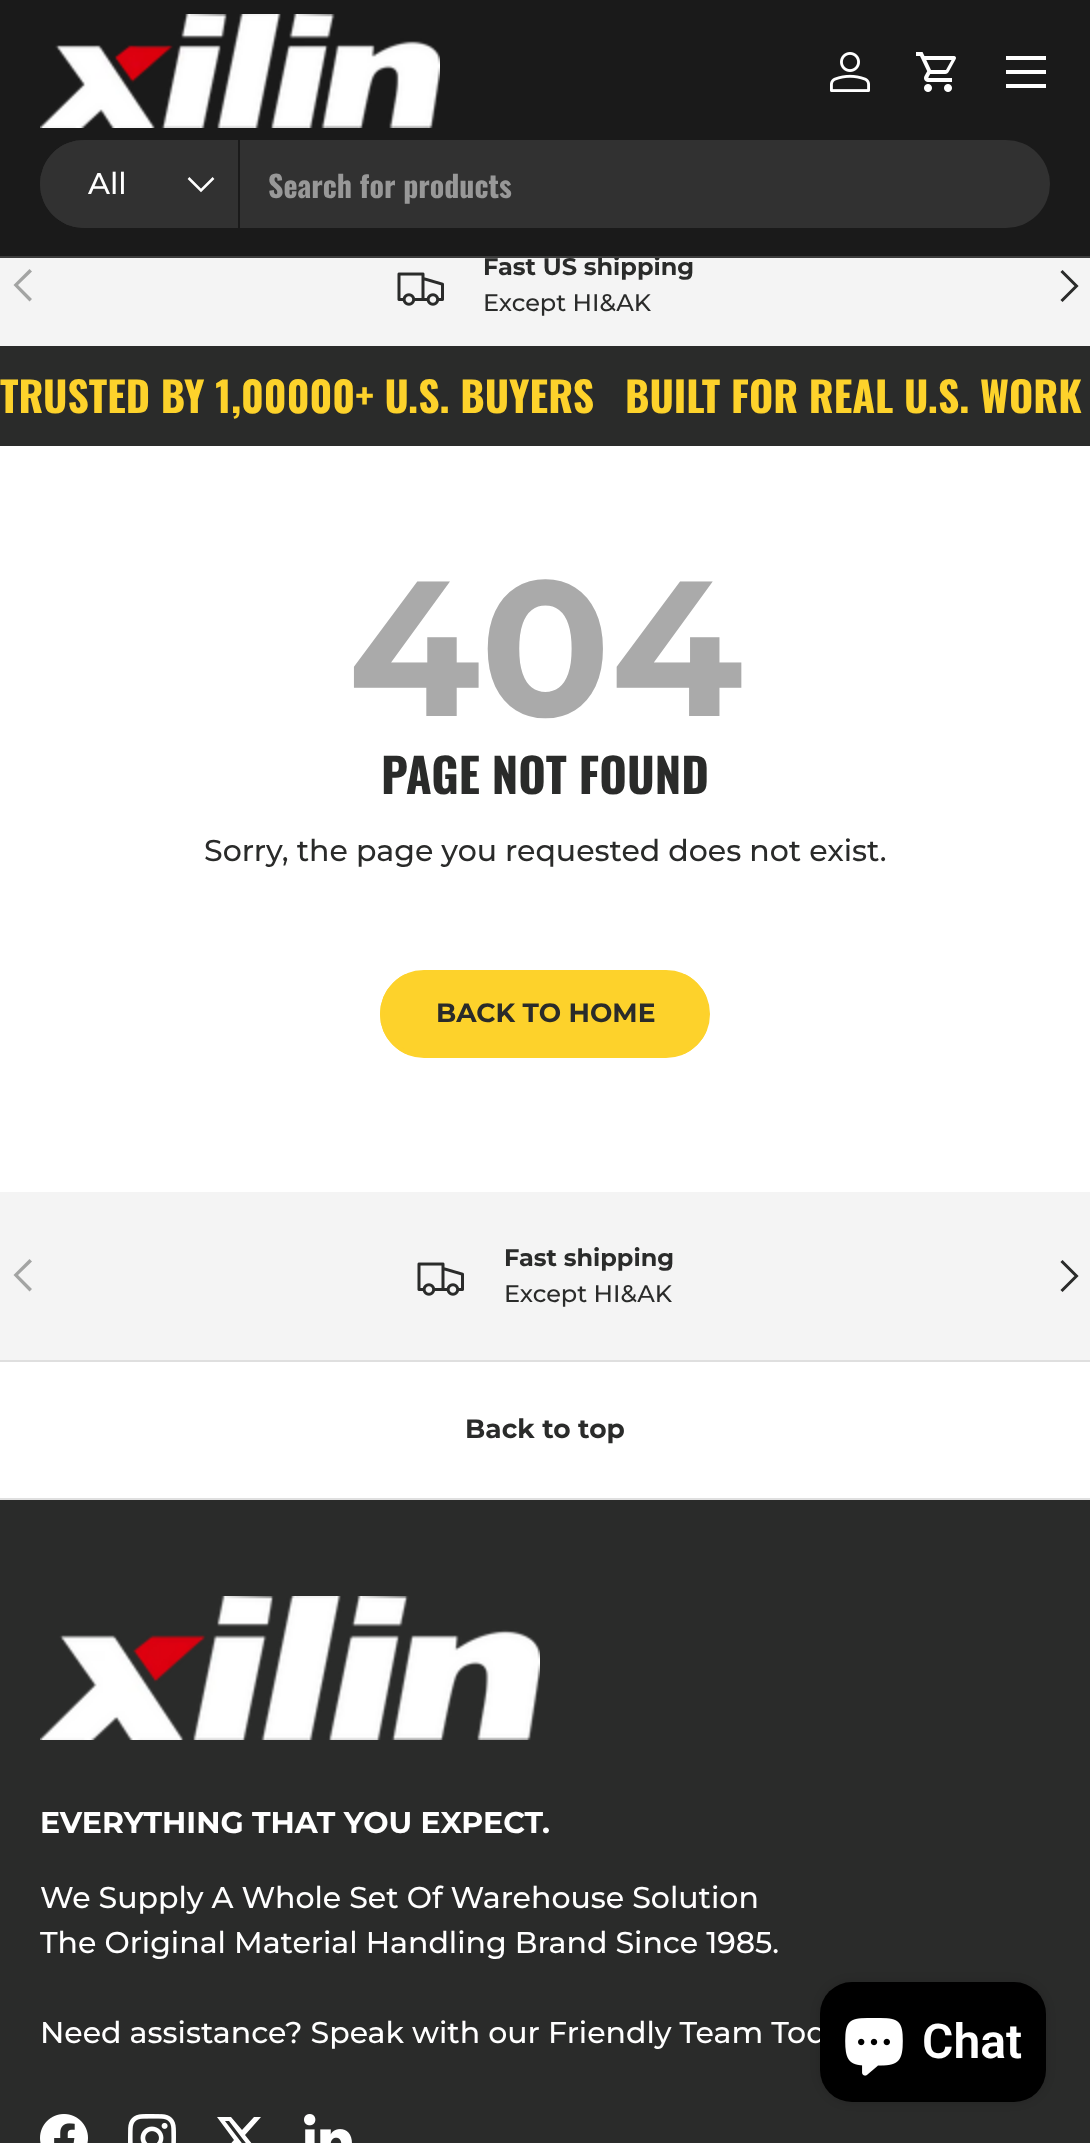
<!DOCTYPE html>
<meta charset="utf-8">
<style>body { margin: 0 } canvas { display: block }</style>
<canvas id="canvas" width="1090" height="2143"></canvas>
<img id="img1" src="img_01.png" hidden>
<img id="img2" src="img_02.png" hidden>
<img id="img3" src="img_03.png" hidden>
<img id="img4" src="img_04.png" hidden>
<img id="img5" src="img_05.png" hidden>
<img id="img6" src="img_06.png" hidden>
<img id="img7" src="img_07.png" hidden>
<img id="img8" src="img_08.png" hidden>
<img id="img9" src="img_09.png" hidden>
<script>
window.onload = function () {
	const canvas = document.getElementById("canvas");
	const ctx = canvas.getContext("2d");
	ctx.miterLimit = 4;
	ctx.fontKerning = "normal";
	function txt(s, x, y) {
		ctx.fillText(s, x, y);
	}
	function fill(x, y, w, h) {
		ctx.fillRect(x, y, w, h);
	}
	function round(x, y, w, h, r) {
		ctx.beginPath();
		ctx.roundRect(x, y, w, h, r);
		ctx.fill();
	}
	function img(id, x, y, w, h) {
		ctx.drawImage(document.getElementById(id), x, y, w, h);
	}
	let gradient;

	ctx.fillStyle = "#FFFFFF";
	fill(0, 0, 1090, 2143);
	ctx.fillStyle = "#1A1A1A";
	fill(0, 0, 1090, 256);
	img("img1", 40, 14, 400, 114);
	img("img2", 830, 52, 40, 40);
	img("img3", 916, 52, 40, 40);
	ctx.fillStyle = "#FFFFFF";
	fill(1006, 56, 40, 4);
	fill(1006, 84, 40, 4);
	fill(1006, 70, 40, 4);
	ctx.fillStyle = "#313131";
	round(40, 140, 1010, 88, 44);
	ctx.beginPath();
	ctx.roundRect(40, 140, 200, 88, [44, 0, 0, 44]);
	ctx.fill();
	ctx.fillStyle = "#1A1A1A";
	fill(238, 140, 2, 88);
	ctx.beginPath();
	ctx.moveTo(213.5, 178);
	ctx.lineTo(201, 190.5);
	ctx.lineTo(188.5, 178);
	ctx.strokeStyle = "#FFFFFF";
	ctx.lineWidth = 2.5;
	ctx.stroke();
	ctx.fillStyle = "#F4F4F4";
	fill(0, 258, 1090, 88);
	img("img4", 397, 272, 47, 34);
	ctx.fillStyle = "#A3A4A3";
	ctx.beginPath();
	ctx.moveTo(13.5, 285);
	ctx.lineTo(29.5, 269);
	ctx.lineTo(32, 271.5);
	ctx.lineTo(18, 285);
	ctx.lineTo(32, 299);
	ctx.lineTo(29.5, 301.5);
	ctx.closePath();
	ctx.fill();
	ctx.beginPath();
	ctx.moveTo(1061.5, 271);
	ctx.lineTo(1076.5, 286);
	ctx.lineTo(1061.5, 301);
	ctx.strokeStyle = "#2A2B2A";
	ctx.lineWidth = 3;
	ctx.stroke();
	ctx.fillStyle = "#2A2B2A";
	fill(0, 346, 1090, 100);
	ctx.save();
	ctx.beginPath();
	ctx.roundRect(380, 970, 330, 88, 44);
	ctx.clip();
	gradient = ctx.createLinearGradient(-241, 898, 687, 1130);
	gradient.addColorStop(0.6, "#DFBD38");
	gradient.addColorStop(0.6, "#FDD22B");
	gradient.addColorStop(1, "#FDD22B");
	ctx.fillStyle = gradient;
	fill(380, 974, 326, 80);
	ctx.restore();
	ctx.beginPath();
	ctx.roundRect(382, 972, 326, 84, 42);
	ctx.strokeStyle = "#FDD22B";
	ctx.lineWidth = 4;
	ctx.stroke();
	ctx.fillStyle = "#F4F4F4";
	fill(0, 1192, 1090, 168);
	img("img4", 417, 1262, 47, 34);
	ctx.fillStyle = "#A3A4A3";
	ctx.beginPath();
	ctx.moveTo(13.5, 1275);
	ctx.lineTo(29.5, 1259);
	ctx.lineTo(32, 1261.5);
	ctx.lineTo(18, 1275);
	ctx.lineTo(32, 1289);
	ctx.lineTo(29.5, 1291.5);
	ctx.closePath();
	ctx.fill();
	ctx.beginPath();
	ctx.moveTo(1061.5, 1261);
	ctx.lineTo(1076.5, 1276);
	ctx.lineTo(1061.5, 1291);
	ctx.strokeStyle = "#2A2B2A";
	ctx.lineWidth = 3;
	ctx.stroke();
	ctx.fillStyle = "#DFDFDF";
	fill(0, 1360, 1090, 2);
	fill(0, 1498, 1090, 2);
	ctx.fillStyle = "#2A2B2A";
	fill(0, 1500, 1090, 643);
	img("img5", 40, 1596, 500, 144);
	img("img6", 40, 2114, 48, 29);
	img("img7", 128, 2114, 48, 29);
	ctx.fillStyle = "#FFFFFF";
	ctx.beginPath();
	ctx.moveTo(254, 2117);
	ctx.lineTo(261, 2117);
	ctx.lineTo(245, 2135);
	ctx.lineTo(264, 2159);
	ctx.lineTo(249, 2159);
	ctx.lineTo(238, 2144);
	ctx.lineTo(225, 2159);
	ctx.lineTo(217, 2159);
	ctx.lineTo(234, 2140);
	ctx.lineTo(217, 2117);
	ctx.lineTo(231, 2117);
	ctx.lineTo(242, 2130);
	ctx.closePath();
	ctx.moveTo(251, 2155);
	ctx.lineTo(255, 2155);
	ctx.lineTo(229, 2121);
	ctx.lineTo(225, 2121);
	ctx.closePath();
	ctx.fill();
	img("img8", 304, 2114, 48, 29);
	ctx.fillStyle = "rgba(0, 0, 0, 0.15)";
	ctx.filter = "blur(5px)";
	ctx.beginPath();
	ctx.roundRect(820, 1982, 226, 120, 32);
	ctx.fill();
	ctx.filter = "none";
	ctx.font = "500 30px Montserrat";
	ctx.fillStyle = "#FFFFFF";
	txt("All", 88, 194);
	ctx.font = "bold 30px Oswald";
	ctx.fillStyle = "#989898";
	txt("Search for products", 268, 198);
	ctx.font = "bold 24px Montserrat";
	ctx.fillStyle = "#2A2B2A";
	txt("Fast US shipping", 483, 275);
	ctx.fillStyle = "#3C3C3C";
	fill(0, 256, 1090, 2);
	ctx.font = "500 24px Montserrat";
	ctx.fillStyle = "#2A2B2A";
	txt("Except HI&AK", 483, 311);
	ctx.font = "bold 41.5px Oswald";
	ctx.fillStyle = "#FDD22B";
	txt("TRUSTED BY 1,00000+ U.S. BUYERS", 0, 413);
	txt("BUILT FOR REAL U.S. WORK", 625, 413);
	ctx.font = "bold 192px Montserrat";
	ctx.fillStyle = "#AAAAAA";
	txt("404", 348, 716);
	ctx.font = "bold 47.25px Oswald";
	ctx.fillStyle = "#2A2B2A";
	txt("PAGE NOT FOUND", 381, 794);
	ctx.font = "500 30px Montserrat";
	txt("Sorry, the page you requested does not exist.", 204, 861);
	ctx.font = "bold 26.5px Montserrat";
	txt("BACK TO HOME", 436, 1022);
	ctx.font = "bold 24px Montserrat";
	txt("Fast shipping", 504, 1266);
	ctx.font = "500 24px Montserrat";
	txt("Except HI&AK", 504, 1302);
	ctx.font = "bold 26.5px Montserrat";
	txt("Back to top", 465, 1438);
	ctx.font = "bold 30px Montserrat";
	ctx.fillStyle = "#FFFFFF";
	txt("EVERYTHING THAT YOU EXPECT.", 40, 1833);
	ctx.font = "500 30px Montserrat";
	txt("We Supply A Whole Set Of Warehouse Solution", 40, 1908);
	txt("The Original Material Handling Brand Since 1985.", 40, 1953);
	txt("Need assistance? Speak with our Friendly Team Tod", 40, 2043);
	ctx.fillStyle = "#000000";
	round(820, 1982, 226, 120, 32);
	img("img9", 845, 2018, 58, 58);
	ctx.font = "600 48px Roboto";
	ctx.fillStyle = "#FFFFFF";
	txt("Chat", 922, 2058);
};
</script>
